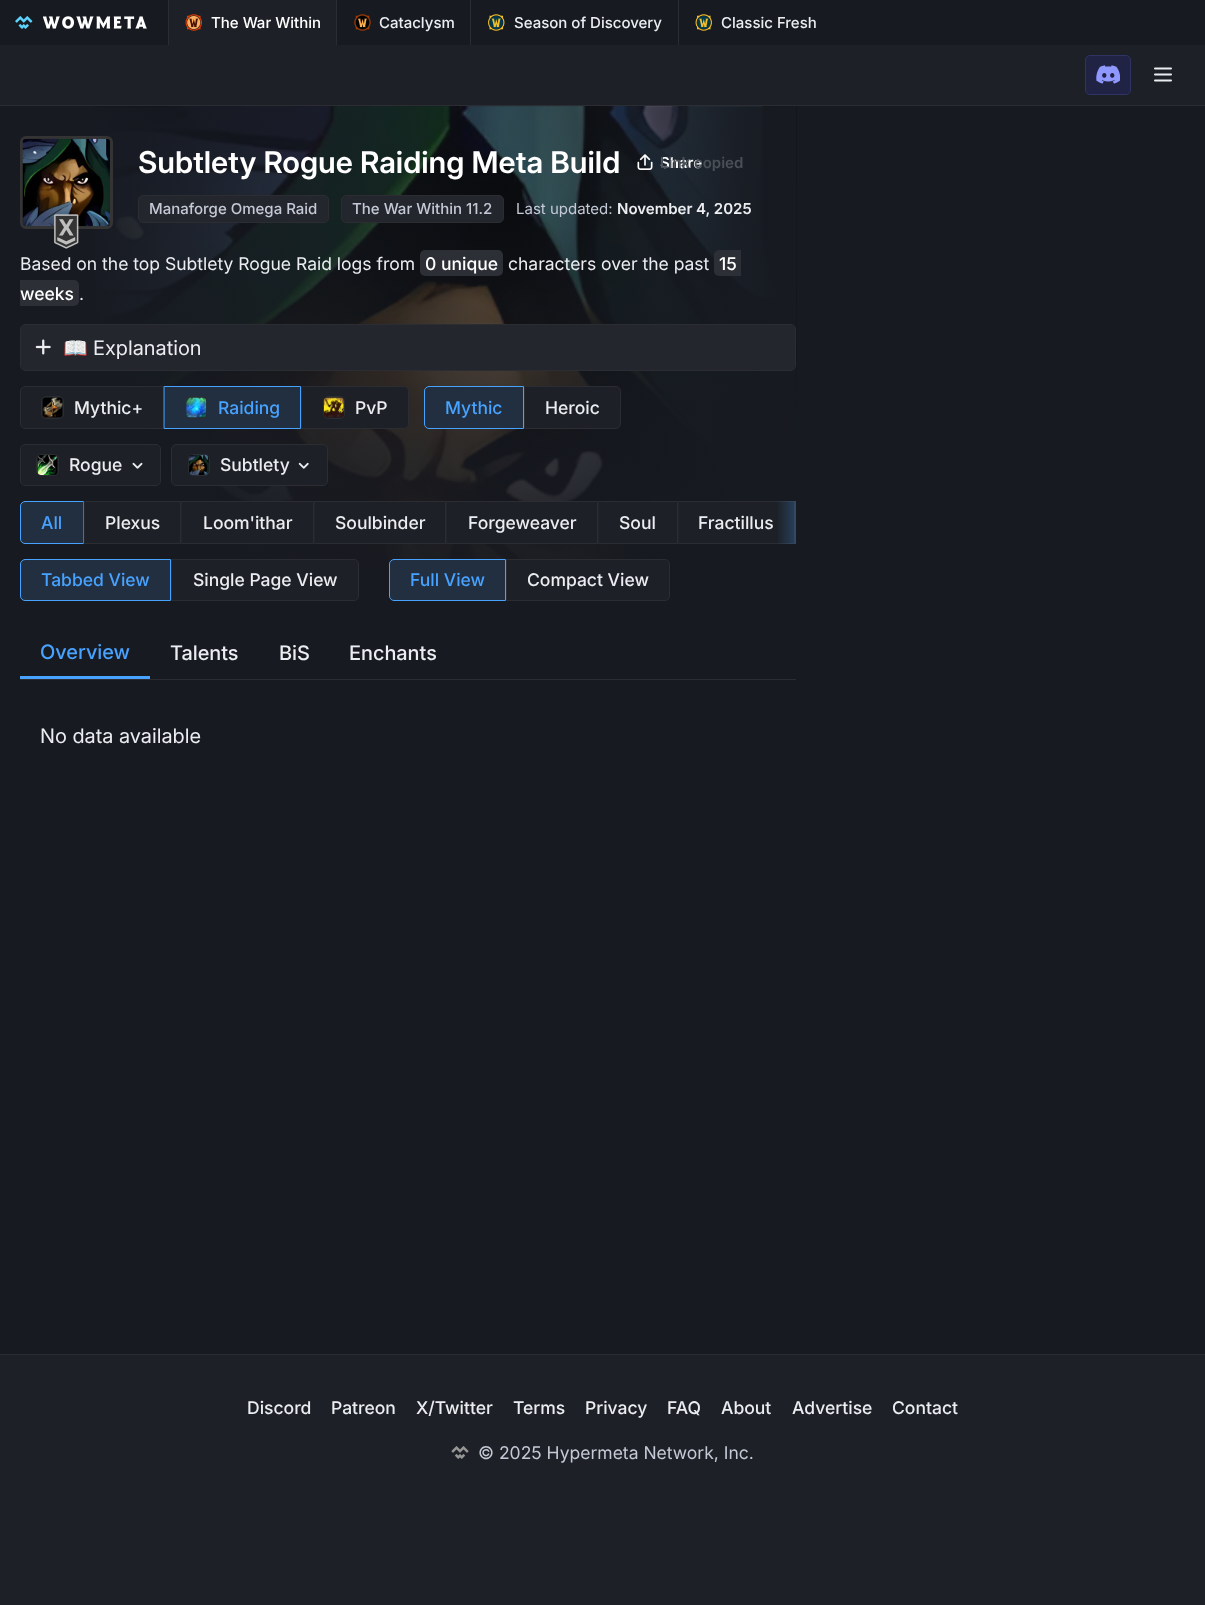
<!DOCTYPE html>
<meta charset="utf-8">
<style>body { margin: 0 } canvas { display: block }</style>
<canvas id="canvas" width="1205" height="1605"></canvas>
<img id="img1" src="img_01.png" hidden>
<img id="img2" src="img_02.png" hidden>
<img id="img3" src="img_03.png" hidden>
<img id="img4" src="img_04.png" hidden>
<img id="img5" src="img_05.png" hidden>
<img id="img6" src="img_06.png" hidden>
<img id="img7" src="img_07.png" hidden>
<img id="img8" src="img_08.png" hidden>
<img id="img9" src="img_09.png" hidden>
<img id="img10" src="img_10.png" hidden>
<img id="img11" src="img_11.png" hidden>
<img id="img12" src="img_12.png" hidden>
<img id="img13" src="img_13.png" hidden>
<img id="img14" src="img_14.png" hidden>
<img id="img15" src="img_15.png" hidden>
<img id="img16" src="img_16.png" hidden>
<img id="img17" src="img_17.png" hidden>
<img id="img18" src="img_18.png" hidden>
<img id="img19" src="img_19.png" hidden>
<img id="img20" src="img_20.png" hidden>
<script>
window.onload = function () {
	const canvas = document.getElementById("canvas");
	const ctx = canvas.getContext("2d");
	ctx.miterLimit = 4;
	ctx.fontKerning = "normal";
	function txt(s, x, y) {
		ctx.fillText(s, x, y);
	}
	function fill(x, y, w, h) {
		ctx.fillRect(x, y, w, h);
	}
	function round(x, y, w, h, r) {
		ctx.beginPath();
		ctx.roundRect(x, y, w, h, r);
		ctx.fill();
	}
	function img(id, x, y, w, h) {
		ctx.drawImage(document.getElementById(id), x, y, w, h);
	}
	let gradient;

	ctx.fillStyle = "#171A21";
	fill(0, 0, 1205, 1605);
	ctx.fillStyle = "#1D2026";
	fill(0, 45, 1205, 60);
	ctx.fillStyle = "#2B2D33";
	fill(0, 105, 1205, 1);
	img("img1", 15, 16, 18, 13);
	img("img2", 43, 16, 104, 13);
	ctx.fillStyle = "#1D2026";
	fill(169, 0, 167, 45);
	ctx.fillStyle = "#2B2D33";
	fill(168, 0, 1, 45);
	img("img3", 185, 14, 17, 17);
	fill(336, 0, 1, 45);
	img("img4", 354, 14, 17, 17);
	fill(470, 0, 1, 45);
	img("img5", 488, 14, 17, 17);
	fill(678, 0, 1, 45);
	img("img6", 695, 14, 17, 17);
	ctx.fillStyle = "#202344";
	ctx.beginPath();
	ctx.roundRect(1085.5, 55.5, 45, 39, 4.5);
	ctx.fill();
	ctx.strokeStyle = "#303465";
	ctx.stroke();
	img("img7", 1096, 65, 24, 19);
	ctx.beginPath();
	ctx.moveTo(1155, 68.5);
	ctx.lineTo(1171, 68.5);
	ctx.moveTo(1155, 74.5);
	ctx.lineTo(1171, 74.5);
	ctx.moveTo(1155, 80.5);
	ctx.lineTo(1171, 80.5);
	ctx.strokeStyle = "#EBEDF1";
	ctx.lineWidth = 2;
	ctx.lineCap = "round";
	ctx.lineJoin = "round";
	ctx.stroke();
	img("img8", 94, 106, 703, 483);
	ctx.beginPath();
	ctx.roundRect(21.5, 137.5, 90, 90, 4.5);
	ctx.strokeStyle = "#343434";
	ctx.lineWidth = 3;
	ctx.lineJoin = "miter";
	ctx.stroke();
	img("img9", 22, 138, 88, 89);
	img("img10", 54, 214, 25, 35);
	img("img11", 637, 154, 16, 16);
	ctx.fillStyle = "#24262D";
	ctx.beginPath();
	ctx.roundRect(138.5, 195.5, 190, 27, 4.5);
	ctx.fill();
	ctx.strokeStyle = "#2B2D33";
	ctx.lineWidth = 1;
	ctx.stroke();
	ctx.beginPath();
	ctx.roundRect(341.5, 195.5, 162, 27, 4.5);
	ctx.fill();
	ctx.stroke();
	ctx.fillStyle = "#2C2F35";
	ctx.beginPath();
	ctx.roundRect(420, 250, 16, 26, [5, 0, 0, 5]);
	ctx.fill();
	ctx.beginPath();
	ctx.roundRect(436, 250, 67, 26, [0, 5, 5, 0]);
	ctx.fill();
	ctx.beginPath();
	ctx.roundRect(714, 250, 27, 26, [5, 0, 0, 5]);
	ctx.fill();
	ctx.beginPath();
	ctx.roundRect(20, 280, 59, 26, [0, 5, 5, 0]);
	ctx.fill();
	ctx.beginPath();
	ctx.roundRect(20.5, 324.5, 775, 46, 4.5);
	ctx.stroke();
	ctx.fillStyle = "#24262D";
	round(21, 325, 774, 45, 4);
	img("img12", 35, 339, 16, 16);
	ctx.fillStyle = "#1D2026";
	ctx.beginPath();
	ctx.roundRect(20.5, 386.5, 143, 42, [4.5, 0, 0, 4.5]);
	ctx.fill();
	ctx.stroke();
	ctx.beginPath();
	ctx.roundRect(41.5, 396.5, 22, 22, 4.5);
	ctx.stroke();
	img("img13", 42, 397, 21, 21);
	ctx.fillStyle = "#222F40";
	ctx.beginPath();
	ctx.rect(164.5, 386.5, 136, 42);
	ctx.fill();
	ctx.strokeStyle = "#47A3FF";
	ctx.stroke();
	ctx.beginPath();
	ctx.roundRect(185.5, 396.5, 22, 22, 4.5);
	ctx.strokeStyle = "#2B2D33";
	ctx.stroke();
	img("img14", 186, 397, 21, 21);
	ctx.fillStyle = "#1D2026";
	ctx.beginPath();
	ctx.roundRect(301.5, 386.5, 107, 42, [0, 4.5, 4.5, 0]);
	ctx.fill();
	ctx.stroke();
	ctx.beginPath();
	ctx.roundRect(323.5, 396.5, 21, 22, 4.5);
	ctx.stroke();
	img("img15", 323, 397, 21, 21);
	ctx.fillStyle = "#222F40";
	ctx.beginPath();
	ctx.roundRect(424.5, 386.5, 99, 42, [4.5, 0, 0, 4.5]);
	ctx.fill();
	ctx.strokeStyle = "#47A3FF";
	ctx.stroke();
	ctx.fillStyle = "#1D2026";
	ctx.beginPath();
	ctx.roundRect(524.5, 386.5, 96, 42, [0, 4.5, 4.5, 0]);
	ctx.fill();
	ctx.strokeStyle = "#2B2D33";
	ctx.stroke();
	ctx.beginPath();
	ctx.roundRect(20.5, 444.5, 140, 41, 4.5);
	ctx.fill();
	ctx.stroke();
	ctx.beginPath();
	ctx.roundRect(36.5, 454.5, 22, 21, 4.5);
	ctx.stroke();
	img("img16", 37, 455, 21, 20);
	img("img17", 132, 462, 11, 7);
	ctx.beginPath();
	ctx.roundRect(171.5, 444.5, 156, 41, 4.5);
	ctx.fill();
	ctx.stroke();
	ctx.beginPath();
	ctx.roundRect(188.5, 454.5, 21, 21, 4.5);
	ctx.stroke();
	img("img18", 189, 455, 20, 20);
	img("img19", 298, 462, 11, 7);
	ctx.fillStyle = "#222F40";
	ctx.beginPath();
	ctx.roundRect(20.5, 501.5, 63, 42, [4.5, 0, 0, 4.5]);
	ctx.fill();
	ctx.strokeStyle = "#47A3FF";
	ctx.stroke();
	ctx.fillStyle = "#1D2026";
	ctx.beginPath();
	ctx.rect(84.5, 501.5, 96, 42);
	ctx.fill();
	ctx.strokeStyle = "#2B2D33";
	ctx.stroke();
	ctx.beginPath();
	ctx.rect(181.5, 501.5, 132, 42);
	ctx.fill();
	ctx.stroke();
	ctx.beginPath();
	ctx.rect(314.5, 501.5, 131, 42);
	ctx.fill();
	ctx.stroke();
	ctx.beginPath();
	ctx.rect(446.5, 501.5, 151, 42);
	ctx.fill();
	ctx.stroke();
	ctx.beginPath();
	ctx.rect(598.5, 501.5, 79, 42);
	ctx.fill();
	ctx.stroke();
	ctx.beginPath();
	ctx.rect(678.5, 501.5, 116, 42);
	ctx.fill();
	ctx.stroke();
	ctx.save();
	ctx.beginPath();
	ctx.rect(20, 501, 776, 43);
	ctx.clip();
	ctx.strokeRect(795.5, 501.5, 140, 42);
	ctx.restore();
	gradient = ctx.createLinearGradient(796, 523, 776, 523);
	gradient.addColorStop(0, "rgba(71, 163, 255, 0.25)");
	gradient.addColorStop(1, "rgba(71, 163, 255, 0)");
	ctx.fillStyle = gradient;
	fill(778, 501, 18, 43);
	ctx.fillStyle = "#222F40";
	ctx.beginPath();
	ctx.roundRect(20.5, 559.5, 150, 41, [4.5, 0, 0, 4.5]);
	ctx.fill();
	ctx.strokeStyle = "#47A3FF";
	ctx.stroke();
	ctx.fillStyle = "#1D2026";
	ctx.beginPath();
	ctx.roundRect(171.5, 559.5, 187, 41, [0, 4.5, 4.5, 0]);
	ctx.fill();
	ctx.strokeStyle = "#2B2D33";
	ctx.stroke();
	ctx.fillStyle = "#222F40";
	ctx.beginPath();
	ctx.roundRect(389.5, 559.5, 116, 41, [4.5, 0, 0, 4.5]);
	ctx.fill();
	ctx.strokeStyle = "#47A3FF";
	ctx.stroke();
	ctx.fillStyle = "#1D2026";
	ctx.beginPath();
	ctx.roundRect(506.5, 559.5, 163, 41, [0, 4.5, 4.5, 0]);
	ctx.fill();
	ctx.strokeStyle = "#2B2D33";
	ctx.stroke();
	ctx.fillStyle = "#2B2D33";
	fill(20, 679, 776, 1);
	ctx.fillStyle = "#47A3FF";
	fill(20, 676, 130, 3);
	ctx.fillStyle = "#1D2026";
	fill(0, 1355, 1205, 250);
	ctx.fillStyle = "#2B2D33";
	fill(0, 1354, 1205, 1);
	img("img20", 451, 1446, 18, 13);
	ctx.font = "500 15px Inter";
	ctx.fillStyle = "#FFFFFF";
	txt("The War Within", 211, 28);
	ctx.fillStyle = "#EBEDF1";
	txt("Cataclysm", 379, 28);
	txt("Season of Discovery", 514, 28);
	txt("Classic Fresh", 721, 28);
	ctx.font = "600 30px Inter";
	ctx.fillStyle = "#FFFFFF";
	txt("Subtlety Rogue Raiding Meta Build", 138, 173);
	ctx.font = "600 15px 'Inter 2'";
	txt("Share", 660, 168);
	ctx.fillStyle = "#4A5057";
	txt("Link copied", 660, 168);
	ctx.font = "500 15px Inter";
	ctx.fillStyle = "#C4C9D6";
	txt("Manaforge Omega Raid", 149, 214);
	txt("The War Within 11.2", 352, 214);
	ctx.font = "15px 'Inter 2'";
	txt("Last updated:", 516, 214);
	ctx.font = "600 15px 'Inter 2'";
	ctx.fillStyle = "#EBEDF1";
	txt("November 4, 2025", 617, 214);
	ctx.font = "17.5px 'Inter 2'";
	txt("Based on the top Subtlety Rogue Raid logs from", 20, 270);
	ctx.font = "500 17.5px Inter";
	ctx.fillStyle = "#FFFFFF";
	txt("0 unique", 425, 270);
	ctx.font = "17.5px 'Inter 2'";
	ctx.fillStyle = "#EBEDF1";
	txt("characters over the past", 508, 270);
	ctx.font = "500 17.5px Inter";
	ctx.fillStyle = "#FFFFFF";
	txt("15", 719, 270);
	txt("weeks", 20, 300);
	ctx.font = "17.5px 'Inter 2'";
	ctx.fillStyle = "#EBEDF1";
	txt(".", 79, 300);
	ctx.font = "20px Noto Color Emoji";
	txt("📖", 63, 355);
	ctx.font = "20px Inter";
	txt("Explanation", 93, 355);
	ctx.font = "500 17.5px Inter";
	txt("Mythic+", 74, 414);
	ctx.fillStyle = "#47A3FF";
	txt("Raiding", 218, 414);
	ctx.fillStyle = "#EBEDF1";
	txt("PvP", 355, 414);
	ctx.fillStyle = "#47A3FF";
	txt("Mythic", 445, 414);
	ctx.fillStyle = "#EBEDF1";
	txt("Heroic", 545, 414);
	txt("Rogue", 69, 471);
	txt("Subtlety", 220, 471);
	ctx.fillStyle = "#47A3FF";
	txt("All", 41, 529);
	ctx.fillStyle = "#EBEDF1";
	txt("Plexus", 105, 529);
	txt("Loom'ithar", 203, 529);
	txt("Soulbinder", 335, 529);
	txt("Forgeweaver", 468, 529);
	txt("Soul", 619, 529);
	txt("Fractillus", 698, 529);
	ctx.fillStyle = "#47A3FF";
	txt("Tabbed View", 41, 586);
	ctx.fillStyle = "#EBEDF1";
	txt("Single Page View", 193, 586);
	ctx.fillStyle = "#47A3FF";
	txt("Full View", 410, 586);
	ctx.fillStyle = "#EBEDF1";
	txt("Compact View", 527, 586);
	ctx.font = "500 20px 'Inter 2'";
	ctx.fillStyle = "#47A3FF";
	txt("Overview", 40, 659);
	ctx.fillStyle = "#EBEDF1";
	txt("Talents", 170, 660);
	txt("BiS", 279, 660);
	txt("Enchants", 349, 660);
	ctx.font = "20px Inter";
	txt("No data available", 40, 743);
	ctx.font = "500 17.5px Inter";
	txt("Discord", 247, 1414);
	txt("Patreon", 331, 1414);
	txt("X/Twitter", 416, 1414);
	txt("Terms", 513, 1414);
	txt("Privacy", 585, 1414);
	txt("FAQ", 667, 1414);
	txt("About", 721, 1414);
	txt("Advertise", 792, 1414);
	txt("Contact", 892, 1414);
	ctx.font = "17.5px 'Inter 2'";
	ctx.fillStyle = "#C4C9D6";
	txt("© 2025 Hypermeta Network, Inc.", 478, 1459);
};
</script>
